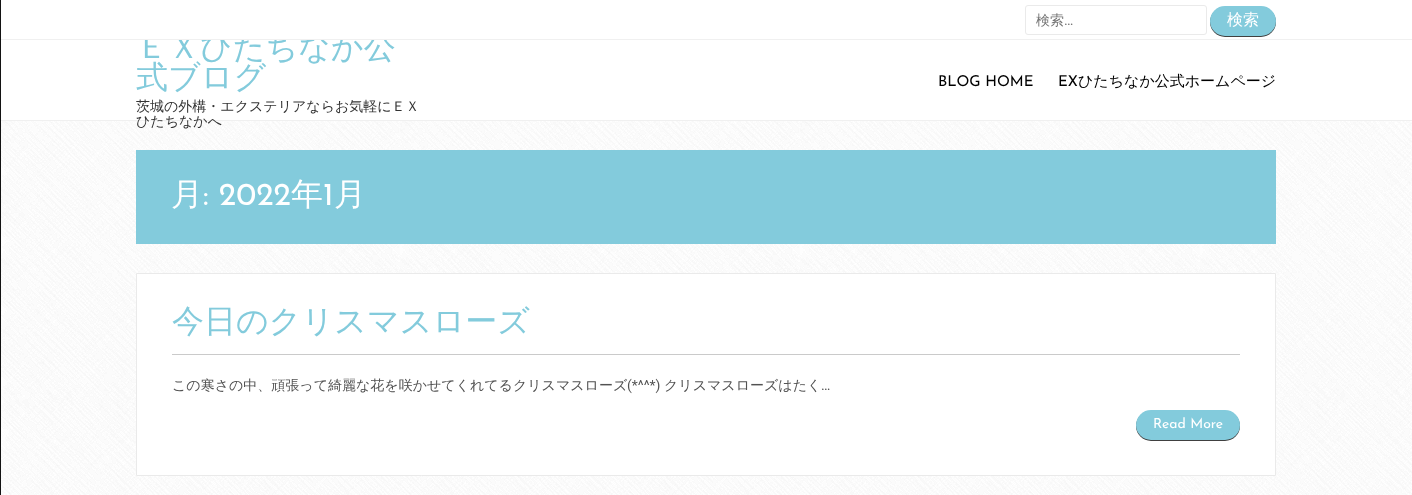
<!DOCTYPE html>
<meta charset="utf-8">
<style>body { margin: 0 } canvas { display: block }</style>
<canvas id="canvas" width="1412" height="495"></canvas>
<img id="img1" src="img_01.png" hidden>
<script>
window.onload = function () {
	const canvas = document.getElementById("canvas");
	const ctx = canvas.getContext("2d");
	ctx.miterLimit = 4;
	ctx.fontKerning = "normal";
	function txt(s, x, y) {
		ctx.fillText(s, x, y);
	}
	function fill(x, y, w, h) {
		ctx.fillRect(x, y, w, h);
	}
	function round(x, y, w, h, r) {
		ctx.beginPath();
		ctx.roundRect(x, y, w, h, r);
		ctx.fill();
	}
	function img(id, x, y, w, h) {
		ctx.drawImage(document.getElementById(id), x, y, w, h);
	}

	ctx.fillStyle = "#FFFFFF";
	fill(0, 0, 1412, 495);
	img("img1", 1, 121, 1411, 374);
	ctx.fillStyle = "#F0F0F0";
	fill(0, 120, 1412, 1);
	ctx.beginPath();
	ctx.roundRect(1025.5, 5.5, 181, 29, 2.5);
	ctx.strokeStyle = "#EAEAEA";
	ctx.stroke();
	ctx.fillStyle = "#83CBDC";
	fill(136, 150, 1140, 94);
	ctx.fillStyle = "#FFFFFF";
	ctx.beginPath();
	ctx.rect(136.5, 273.5, 1139, 202);
	ctx.fill();
	ctx.stroke();
	ctx.fillStyle = "#CACACA";
	fill(172, 354, 1068, 1);
	ctx.fillStyle = "rgba(0, 0, 0, 0.75)";
	ctx.filter = "blur(0.5px)";
	ctx.beginPath();
	ctx.roundRect(1136, 411, 104, 30, 15);
	ctx.fill();
	ctx.filter = "none";
	ctx.fillStyle = "#83CBDC";
	round(1136, 410, 104, 30, 15);
	ctx.font = "500 14px WenQuanYi Zen Hei";
	ctx.fillStyle = "#757575";
	txt("検索", 1036, 25);
	ctx.font = "14px Roboto";
	txt("…", 1064, 25);
	ctx.font = "500 32px WenQuanYi Zen Hei";
	ctx.fillStyle = "#83CBDC";
	txt("ＥＸひたちなか公", 136, 58);
	ctx.fillStyle = "#F0F0F0";
	fill(0, 39, 1412, 1);
	ctx.fillStyle = "#131313";
	fill(0, 0, 1, 495);
	ctx.fillStyle = "rgba(0, 0, 0, 0.75)";
	ctx.filter = "blur(0.5px)";
	ctx.beginPath();
	ctx.roundRect(1210, 7, 66, 30, 15);
	ctx.fill();
	ctx.filter = "none";
	ctx.fillStyle = "#83CBDC";
	round(1210, 6, 66, 30, 15);
	ctx.font = "500 16px WenQuanYi Zen Hei";
	ctx.fillStyle = "#FFFFFF";
	txt("検索", 1227, 25);
	fill(144, 32, 242, 7);
	ctx.font = "500 32px WenQuanYi Zen Hei";
	ctx.fillStyle = "#83CBDC";
	txt("式ブログ", 136, 88);
	ctx.font = "500 14px WenQuanYi Zen Hei";
	ctx.fillStyle = "#333333";
	txt("茨城の外構・エクステリアならお気軽にＥＸ", 136, 111);
	txt("ひたちなかへ", 136, 126);
	ctx.font = "15px Josefin Sans";
	ctx.fillStyle = "#000000";
	txt("BLOG HOME", 938, 86);
	txt("EX", 1058, 86);
	ctx.font = "500 15px WenQuanYi Zen Hei";
	txt("ひたちなか公式ホームページ", 1078, 86);
	ctx.font = "500 32px WenQuanYi Zen Hei";
	ctx.fillStyle = "#FFFFFF";
	txt("月", 171, 205);
	ctx.font = "32px Josefin Sans";
	txt(": 2022", 203, 205);
	ctx.font = "500 32px WenQuanYi Zen Hei";
	txt("年", 291, 205);
	ctx.font = "32px Josefin Sans";
	txt("1", 323, 205);
	ctx.font = "500 32px WenQuanYi Zen Hei";
	txt("月", 334, 205);
	ctx.fillStyle = "#83CBDC";
	txt("今日のクリスマスローズ", 172, 332);
	ctx.font = "500 14px WenQuanYi Zen Hei";
	ctx.fillStyle = "#525252";
	txt("この寒さの中、頑張って綺麗な花を咲かせてくれてるクリスマスローズ", 172, 390);
	ctx.font = "14px Roboto";
	txt("(*^^*)", 627, 390);
	ctx.font = "500 14px WenQuanYi Zen Hei";
	txt("クリスマスローズはたく", 664, 390);
	ctx.font = "14px Roboto";
	txt("…", 821, 390);
	ctx.font = "14px Josefin Sans";
	ctx.fillStyle = "#FFFFFF";
	txt("Read More", 1153, 428);
};
</script>
